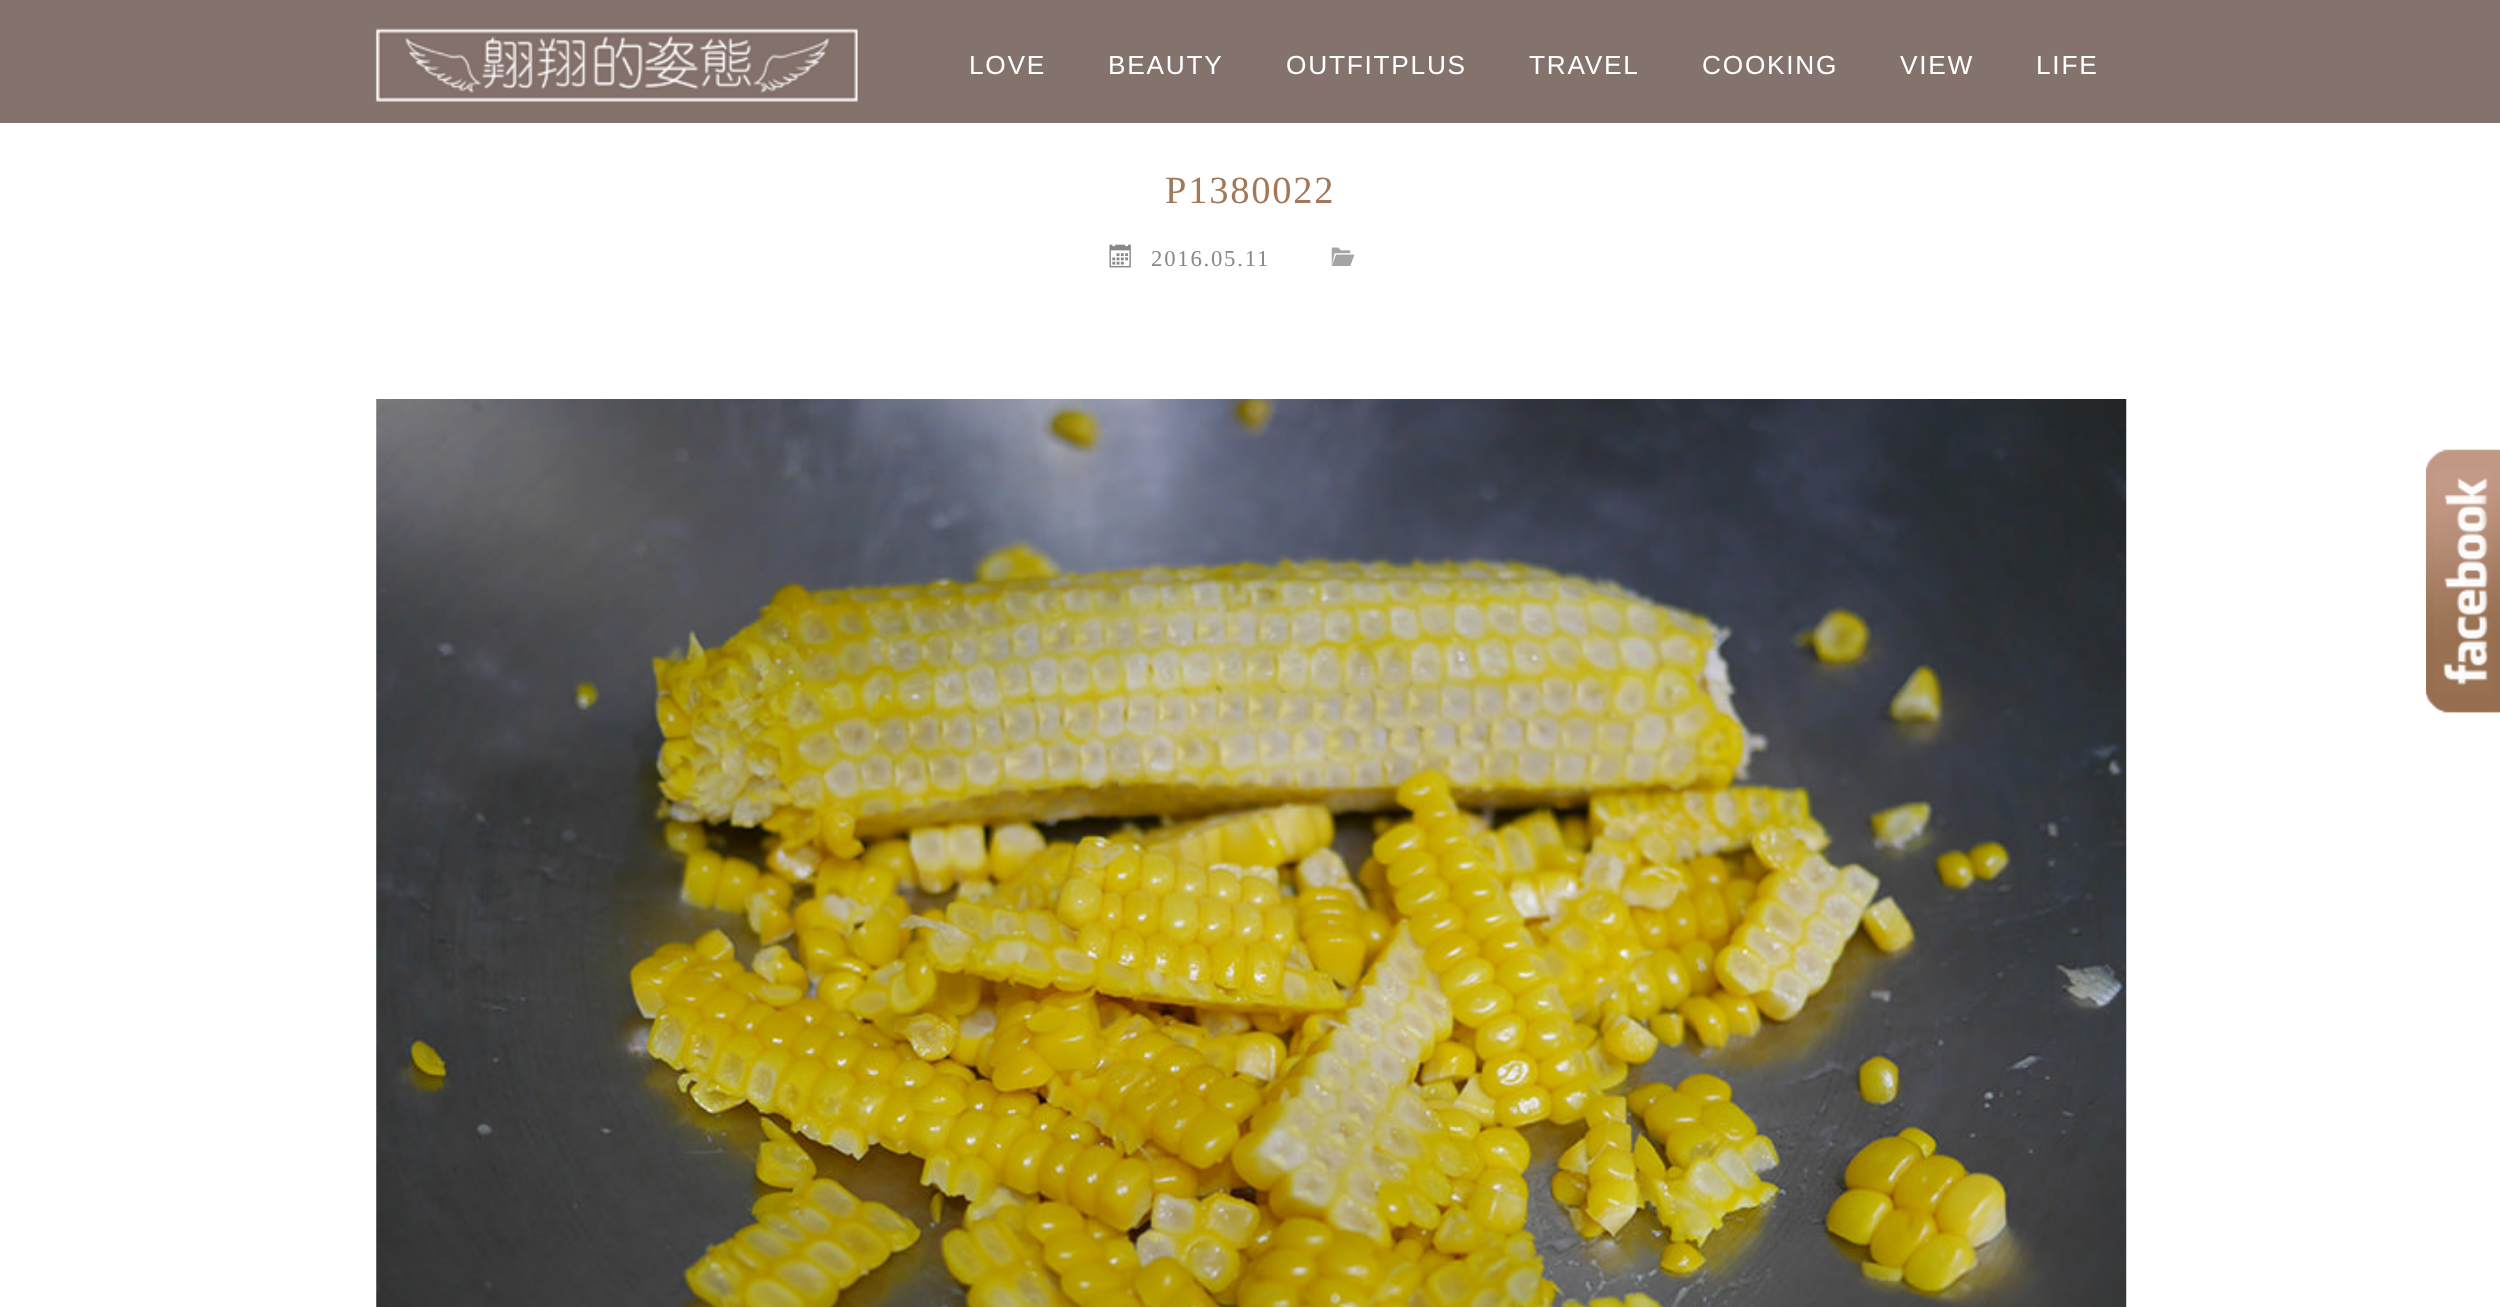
<!DOCTYPE html>
<meta charset="utf-8">
<style>body { margin: 0 } canvas { display: block }</style>
<canvas id="canvas" width="2500" height="1307"></canvas>
<img id="img1" src="img_01.png" hidden>
<img id="img2" src="img_02.png" hidden>
<img id="img3" src="img_03.png" hidden>
<img id="img4" src="img_04.png" hidden>
<img id="img5" src="img_05.png" hidden>
<script>
window.onload = function () {
	const canvas = document.getElementById("canvas");
	const ctx = canvas.getContext("2d");
	ctx.miterLimit = 4;
	ctx.fontKerning = "normal";
	function txt(s, x, y) {
		ctx.fillText(s, x, y);
	}
	function fill(x, y, w, h) {
		ctx.fillRect(x, y, w, h);
	}
	function img(id, x, y, w, h) {
		ctx.drawImage(document.getElementById(id), x, y, w, h);
	}

	ctx.fillStyle = "#FFFFFF";
	fill(0, 0, 2500, 1307);
	ctx.fillStyle = "#84726C";
	fill(0, 0, 2500, 123);
	img("img1", 375, 26, 483, 76);
	img("img2", 1109, 244, 22, 24);
	img("img3", 1331, 247, 24, 19);
	img("img4", 376, 399, 1751, 908);
	img("img5", 2426, 449, 74, 264);
	ctx.letterSpacing = "1.75px";
	ctx.font = "26.25px Liberation Sans";
	ctx.fillStyle = "#FFFFFF";
	txt("LOVE", 969, 74);
	txt("BEAUTY", 1108, 74);
	txt("OUTFITPLUS", 1286, 74);
	txt("TRAVEL", 1529, 74);
	txt("COOKING", 1702, 74);
	txt("VIEW", 1900, 74);
	txt("LIFE", 2036, 74);
	ctx.font = "38.5px Liberation Serif";
	ctx.fillStyle = "#A1785A";
	txt("P1380022", 1165, 203);
	ctx.font = "22.75px Liberation Serif";
	ctx.fillStyle = "#888888";
	txt("2016.05.11", 1151, 266);
};
</script>
